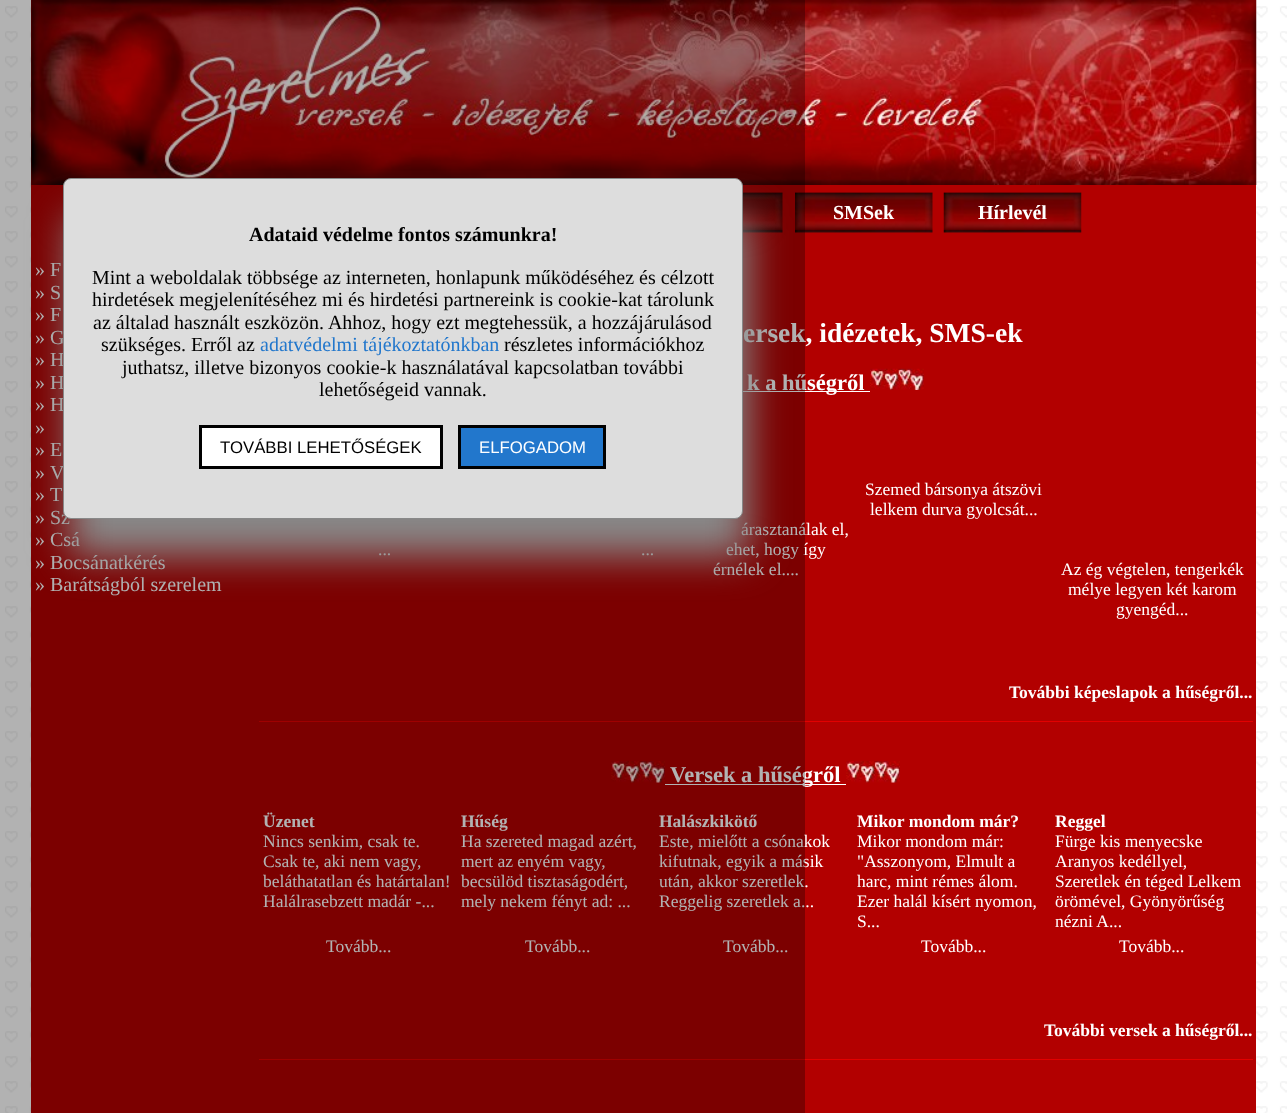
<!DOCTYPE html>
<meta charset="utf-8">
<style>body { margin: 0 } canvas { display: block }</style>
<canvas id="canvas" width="1287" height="1113"></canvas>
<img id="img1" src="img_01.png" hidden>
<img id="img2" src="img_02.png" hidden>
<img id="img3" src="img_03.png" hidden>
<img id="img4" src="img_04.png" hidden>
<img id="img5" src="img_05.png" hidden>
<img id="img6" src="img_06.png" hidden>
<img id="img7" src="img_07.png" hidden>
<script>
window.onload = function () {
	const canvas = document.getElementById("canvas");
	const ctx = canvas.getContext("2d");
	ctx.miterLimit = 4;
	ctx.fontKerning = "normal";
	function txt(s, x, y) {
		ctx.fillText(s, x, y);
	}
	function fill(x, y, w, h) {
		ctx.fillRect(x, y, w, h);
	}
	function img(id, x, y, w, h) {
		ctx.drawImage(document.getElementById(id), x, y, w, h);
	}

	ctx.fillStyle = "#FFFFFF";
	fill(0, 0, 1287, 1113);
	img("img1", 5, 6, 1282, 1107);
	ctx.fillStyle = "#B20000";
	fill(31, 0, 1225, 1113);
	img("img2", 31, 0, 1226, 185);
	img("img3", 743, 192, 40, 41);
	img("img4", 795, 192, 138, 41);
	img("img5", 943, 192, 139, 41);
	ctx.fillStyle = "#FFFFFF";
	fill(743, 391, 127, 1);
	img("img6", 870, 368, 54, 22);
	ctx.fillStyle = "#E20000";
	fill(259, 721, 994, 1);
	img("img7", 611, 761, 54, 22);
	ctx.fillStyle = "#FFFFFF";
	fill(665, 784, 181, 1);
	img("img7", 846, 761, 54, 22);
	ctx.fillStyle = "#E20000";
	fill(259, 1059, 994, 1);
	ctx.font = "bold 20px Liberation Serif";
	ctx.fillStyle = "#FFFFFF";
	txt("SMSek", 833, 219);
	txt("Hírlevél", 978, 219);
	ctx.font = "20px Liberation Serif";
	txt("» F", 35, 276);
	txt("» S", 35, 299);
	txt("» F", 35, 321);
	txt("» G", 35, 344);
	txt("» H", 35, 366);
	txt("» H", 35, 389);
	txt("» H", 35, 411);
	txt("»", 35, 434);
	txt("» E", 35, 456);
	txt("»", 35, 479);
	txt("V", 50, 479);
	txt("»", 35, 501);
	txt("T", 50, 501);
	txt("» Sz", 35, 524);
	txt("» Csá", 35, 546);
	txt("» Bocsánatkérés", 35, 569);
	txt("» Barátságból szerelem", 35, 591);
	ctx.font = "bold 27.5px Liberation Serif";
	txt("ersek, idézetek, SMS-ek", 743, 342);
	ctx.font = "bold 22.5px Liberation Serif";
	txt("k a hűségről", 747, 390);
	ctx.font = "17.5px Liberation Serif";
	txt("Szemed bársonya átszövi", 865, 495);
	txt("lelkem durva gyolcsát...", 870, 515);
	txt("...", 378, 555);
	txt("...", 641, 555);
	txt("árasztanálak el,", 741, 535);
	txt("ehet, hogy így", 726, 555);
	txt("érnélek el....", 713, 575);
	txt("Az ég végtelen, tengerkék", 1061, 575);
	txt("mélye legyen két karom", 1068, 595);
	txt("gyengéd...", 1116, 615);
	ctx.font = "bold 17.5px Liberation Serif";
	txt("További képeslapok a hűségről...", 1009, 698);
	ctx.font = "bold 22.5px Liberation Serif";
	txt("Versek a hűségről", 670, 782);
	ctx.font = "bold 17.5px Liberation Serif";
	txt("Üzenet", 263, 827);
	ctx.font = "17.5px Liberation Serif";
	txt("Nincs senkim, csak te.", 263, 847);
	txt("Csak te, aki nem vagy,", 263, 867);
	txt("beláthatatlan és határtalan!", 263, 887);
	txt("Halálrasebzett madár -...", 263, 907);
	ctx.font = "bold 17.5px Liberation Serif";
	txt("Hűség", 461, 827);
	ctx.font = "17.5px Liberation Serif";
	txt("Ha szereted magad azért,", 461, 847);
	txt("mert az enyém vagy,", 461, 867);
	txt("becsülöd tisztaságodért,", 461, 887);
	txt("mely nekem fényt ad: ...", 461, 907);
	ctx.font = "bold 17.5px Liberation Serif";
	txt("Halászkikötő", 659, 827);
	ctx.font = "17.5px Liberation Serif";
	txt("Este, mielőtt a csónakok", 659, 847);
	txt("kifutnak, egyik a másik", 659, 867);
	txt("után, akkor szeretlek.", 659, 887);
	txt("Reggelig szeretlek a...", 659, 907);
	ctx.font = "bold 17.5px Liberation Serif";
	txt("Mikor mondom már?", 857, 827);
	ctx.font = "17.5px Liberation Serif";
	txt("Mikor mondom már:", 857, 847);
	txt("\"Asszonyom, Elmult a", 857, 867);
	txt("harc, mint rémes álom.", 857, 887);
	txt("Ezer halál kísért nyomon,", 857, 907);
	txt("S...", 857, 927);
	ctx.font = "bold 17.5px Liberation Serif";
	txt("Reggel", 1055, 827);
	ctx.font = "17.5px Liberation Serif";
	txt("Fürge kis menyecske", 1055, 847);
	txt("Aranyos kedéllyel,", 1055, 867);
	txt("Szeretlek én téged Lelkem", 1055, 887);
	txt("örömével, Gyönyörűség", 1055, 907);
	txt("nézni A...", 1055, 927);
	txt("Tovább...", 326, 952);
	txt("Tovább...", 525, 952);
	txt("Tovább...", 723, 952);
	txt("Tovább...", 921, 952);
	txt("Tovább...", 1119, 952);
	ctx.font = "bold 17.5px Liberation Serif";
	txt("További versek a hűségről...", 1044, 1036);
	ctx.fillStyle = "rgba(0, 0, 0, 0.3)";
	fill(0, 0, 805, 1113);
	ctx.fillStyle = "#888888";
	ctx.filter = "blur(19px)";
	ctx.beginPath();
	ctx.roundRect(69, 215, 680, 341, 8);
	ctx.fill();
	ctx.filter = "none";
	ctx.fillStyle = "#DDDDDD";
	ctx.beginPath();
	ctx.roundRect(63.5, 178.5, 679, 340, 7.5);
	ctx.fill();
	ctx.strokeStyle = "#888888";
	ctx.stroke();
	ctx.font = "bold 20px Liberation Serif";
	ctx.fillStyle = "#000000";
	txt("Adataid védelme fontos számunkra!", 249, 241);
	ctx.font = "20px Liberation Serif";
	txt("Mint a weboldalak többsége az interneten, honlapunk működéséhez és célzott", 92, 284);
	txt("hirdetések megjelenítéséhez mi és hirdetési partnereink is cookie-kat tárolunk", 92, 306);
	txt("az általad használt eszközön. Ahhoz, hogy ezt megtehessük, a hozzájárulásod", 93, 329);
	txt("szükséges. Erről az", 101, 351);
	ctx.fillStyle = "#2277CC";
	txt("adatvédelmi tájékoztatónkban", 260, 351);
	ctx.fillStyle = "#000000";
	txt("részletes információkhoz", 504, 351);
	txt("juthatsz, illetve bizonyos cookie-k használatával kapcsolatban további", 122, 374);
	txt("lehetőségeid vannak.", 319, 396);
	ctx.fillStyle = "#FFFFFF";
	ctx.beginPath();
	ctx.rect(200.5, 426.5, 241, 41);
	ctx.fill();
	ctx.strokeStyle = "#000000";
	ctx.lineWidth = 3;
	ctx.stroke();
	ctx.font = "16.75px Liberation Sans";
	ctx.fillStyle = "#000000";
	txt("TOVÁBBI LEHETŐSÉGEK", 220, 453);
	ctx.fillStyle = "#2277CC";
	ctx.beginPath();
	ctx.rect(459.5, 426.5, 145, 41);
	ctx.fill();
	ctx.stroke();
	ctx.fillStyle = "#FFFFFF";
	txt("ELFOGADOM", 479, 453);
};
</script>
